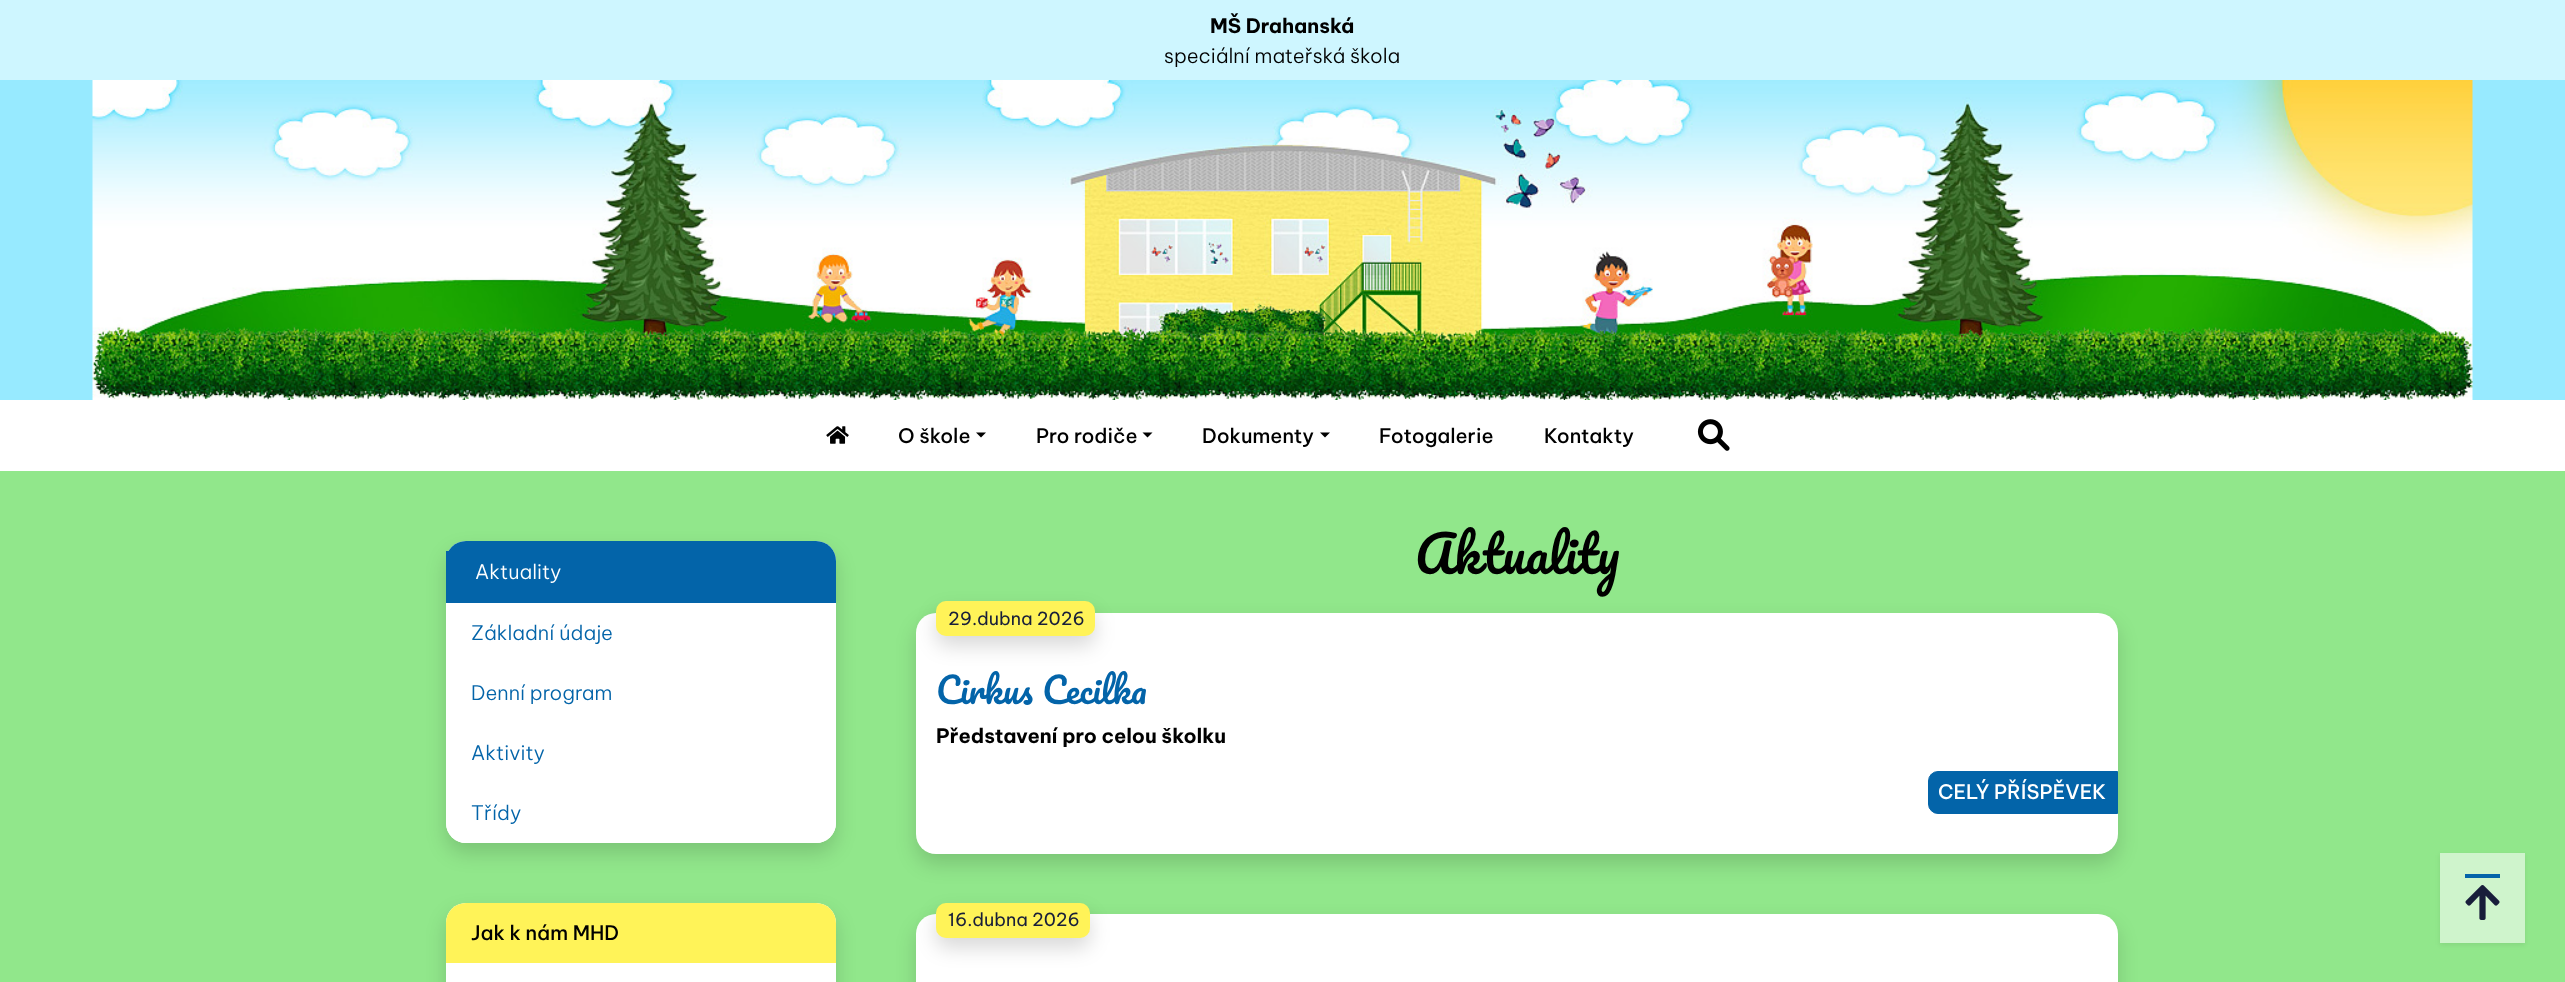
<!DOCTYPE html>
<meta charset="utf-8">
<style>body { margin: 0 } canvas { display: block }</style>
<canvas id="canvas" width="2565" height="982"></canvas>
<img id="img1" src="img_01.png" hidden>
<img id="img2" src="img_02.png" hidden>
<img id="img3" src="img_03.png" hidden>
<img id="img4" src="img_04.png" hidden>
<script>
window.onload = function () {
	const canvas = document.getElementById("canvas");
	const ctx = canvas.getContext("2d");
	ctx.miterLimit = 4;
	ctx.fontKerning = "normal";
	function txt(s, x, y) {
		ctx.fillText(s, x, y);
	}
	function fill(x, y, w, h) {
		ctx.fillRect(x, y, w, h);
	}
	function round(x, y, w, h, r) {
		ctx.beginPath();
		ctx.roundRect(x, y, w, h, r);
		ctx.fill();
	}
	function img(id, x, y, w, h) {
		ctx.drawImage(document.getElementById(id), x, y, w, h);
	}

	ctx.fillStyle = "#91E78B";
	fill(0, 0, 2565, 982);
	ctx.fillStyle = "#CEF6FF";
	fill(0, 0, 2565, 80);
	ctx.fillStyle = "#97EAFF";
	fill(0, 80, 2565, 320);
	img("img1", 92, 80, 2381, 320);
	ctx.fillStyle = "#FFFFFF";
	fill(0, 400, 2565, 71);
	img("img2", 826, 426, 23, 18);
	ctx.fillStyle = "#000000";
	ctx.beginPath();
	ctx.moveTo(976, 432.5);
	ctx.lineTo(986, 432.5);
	ctx.lineTo(981, 437.5);
	ctx.closePath();
	ctx.fill();
	ctx.beginPath();
	ctx.moveTo(1142.5, 432.5);
	ctx.lineTo(1152.5, 432.5);
	ctx.lineTo(1147.5, 437.5);
	ctx.closePath();
	ctx.fill();
	ctx.beginPath();
	ctx.moveTo(1320, 432.5);
	ctx.lineTo(1330, 432.5);
	ctx.lineTo(1325, 437.5);
	ctx.closePath();
	ctx.fill();
	img("img3", 1697, 419, 33, 32);
	ctx.fillStyle = "rgba(0, 0, 0, 0.15)";
	ctx.filter = "blur(10px)";
	ctx.beginPath();
	ctx.roundRect(446, 551, 390, 302, 20);
	ctx.fill();
	ctx.filter = "none";
	ctx.fillStyle = "#FFFFFF";
	round(446, 541, 390, 302, 20);
	ctx.fillStyle = "#0364A9";
	ctx.beginPath();
	ctx.roundRect(446, 541, 390, 62, [20, 20, 0, 0]);
	ctx.fill();
	fill(446, 551, 3, 10);
	ctx.fillStyle = "#FFFFFF";
	ctx.beginPath();
	ctx.roundRect(446, 783, 390, 60, [0, 0, 20, 20]);
	ctx.fill();
	ctx.fillStyle = "rgba(0, 0, 0, 0.15)";
	ctx.filter = "blur(10px)";
	ctx.beginPath();
	ctx.roundRect(446, 913, 390, 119, 20);
	ctx.fill();
	ctx.filter = "none";
	ctx.fillStyle = "#FFFFFF";
	round(446, 903, 390, 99, 20);
	ctx.fillStyle = "#FFF358";
	ctx.beginPath();
	ctx.roundRect(446, 903, 390, 60, [20, 20, 0, 0]);
	ctx.fill();
	ctx.fillStyle = "rgba(0, 0, 0, 0.15)";
	ctx.filter = "blur(10px)";
	ctx.beginPath();
	ctx.roundRect(916, 623, 1202, 241, 20);
	ctx.fill();
	ctx.filter = "none";
	ctx.fillStyle = "#FFFFFF";
	round(916, 613, 1202, 241, 20);
	ctx.fillStyle = "rgba(0, 0, 0, 0.15)";
	ctx.filter = "blur(10px)";
	ctx.beginPath();
	ctx.roundRect(936, 611, 159, 35, 10);
	ctx.fill();
	ctx.filter = "none";
	ctx.fillStyle = "#FFF358";
	round(936, 601, 159, 35, 10);
	ctx.beginPath();
	ctx.roundRect(936.5, 601.5, 158, 34, 9.5);
	ctx.strokeStyle = "rgba(255, 243, 88, 0.18)";
	ctx.stroke();
	ctx.fillStyle = "#0364A9";
	ctx.beginPath();
	ctx.roundRect(1928.5, 771.5, 189, 42, [9.5, 0, 0, 9.5]);
	ctx.fill();
	ctx.strokeStyle = "#0364A9";
	ctx.stroke();
	ctx.fillStyle = "rgba(0, 0, 0, 0.15)";
	ctx.filter = "blur(10px)";
	ctx.beginPath();
	ctx.roundRect(916, 924, 1202, 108, 20);
	ctx.fill();
	ctx.filter = "none";
	ctx.fillStyle = "#FFFFFF";
	round(916, 914, 1202, 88, 20);
	ctx.fillStyle = "rgba(0, 0, 0, 0.15)";
	ctx.filter = "blur(10px)";
	ctx.beginPath();
	ctx.roundRect(936, 913, 154, 35, 10);
	ctx.fill();
	ctx.filter = "none";
	ctx.fillStyle = "#FFF358";
	round(936, 903, 154, 35, 10);
	ctx.beginPath();
	ctx.roundRect(936.5, 903.5, 153, 34, 9.5);
	ctx.strokeStyle = "rgba(255, 243, 88, 0.18)";
	ctx.stroke();
	ctx.save();
	ctx.beginPath();
	ctx.moveTo(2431, 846);
	ctx.lineTo(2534, 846);
	ctx.lineTo(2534, 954);
	ctx.lineTo(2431, 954);
	ctx.closePath();
	ctx.moveTo(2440, 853);
	ctx.lineTo(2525, 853);
	ctx.lineTo(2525, 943);
	ctx.lineTo(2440, 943);
	ctx.closePath();
	ctx.clip("evenodd");
	ctx.fillStyle = "rgba(0, 0, 0, 0.07)";
	ctx.filter = "blur(2.5px)";
	ctx.beginPath();
	ctx.rect(2440, 855, 85, 90);
	ctx.fill();
	ctx.filter = "none";
	ctx.restore();
	ctx.fillStyle = "rgba(255, 255, 255, 0.56)";
	fill(2440, 853, 85, 90);
	ctx.fillStyle = "#0364A9";
	fill(2465, 874, 35, 4);
	img("img4", 2465, 885, 35, 35);
	ctx.font = "bold 20px Be Vietnam Pro";
	ctx.fillStyle = "#000000";
	txt("MŠ Drahanská", 1210, 33);
	ctx.font = "300 20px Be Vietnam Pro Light";
	txt("speciální mateřská škola", 1164, 63);
	ctx.font = "500 20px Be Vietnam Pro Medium";
	txt("O škole", 898, 443);
	txt("Pro rodiče", 1036, 443);
	txt("Dokumenty", 1202, 443);
	txt("Fotogalerie", 1379, 443);
	txt("Kontakty", 1544, 443);
	ctx.font = "300 20px Be Vietnam Pro Light";
	ctx.fillStyle = "#FFFFFF";
	txt("Aktuality", 475, 579);
	ctx.fillStyle = "#0364A9";
	txt("Základní údaje", 471, 640);
	txt("Denní program", 471, 700);
	txt("Aktivity", 471, 760);
	txt("Třídy", 471, 820);
	ctx.font = "500 20px Be Vietnam Pro Medium";
	ctx.fillStyle = "#000000";
	txt("Jak k nám MHD", 471, 940);
	ctx.font = "50px Pacifico";
	txt("Aktuality", 1415, 574);
	ctx.font = "18px Be Vietnam Pro";
	ctx.fillStyle = "#181E3A";
	txt("29.dubna 2026", 948, 625);
	ctx.font = "35px Pacifico";
	ctx.fillStyle = "#0364A9";
	txt("Cirkus Cecilka", 936, 704);
	ctx.font = "bold 20px Be Vietnam Pro";
	ctx.fillStyle = "#000000";
	txt("Představení pro celou školku", 936, 743);
	ctx.font = "500 20px Be Vietnam Pro Medium";
	ctx.fillStyle = "#FFFFFF";
	txt("CELÝ PŘÍSPĚVEK", 1938, 799);
	ctx.font = "18px Be Vietnam Pro";
	ctx.fillStyle = "#181E3A";
	txt("16.dubna 2026", 948, 926);
};
</script>
